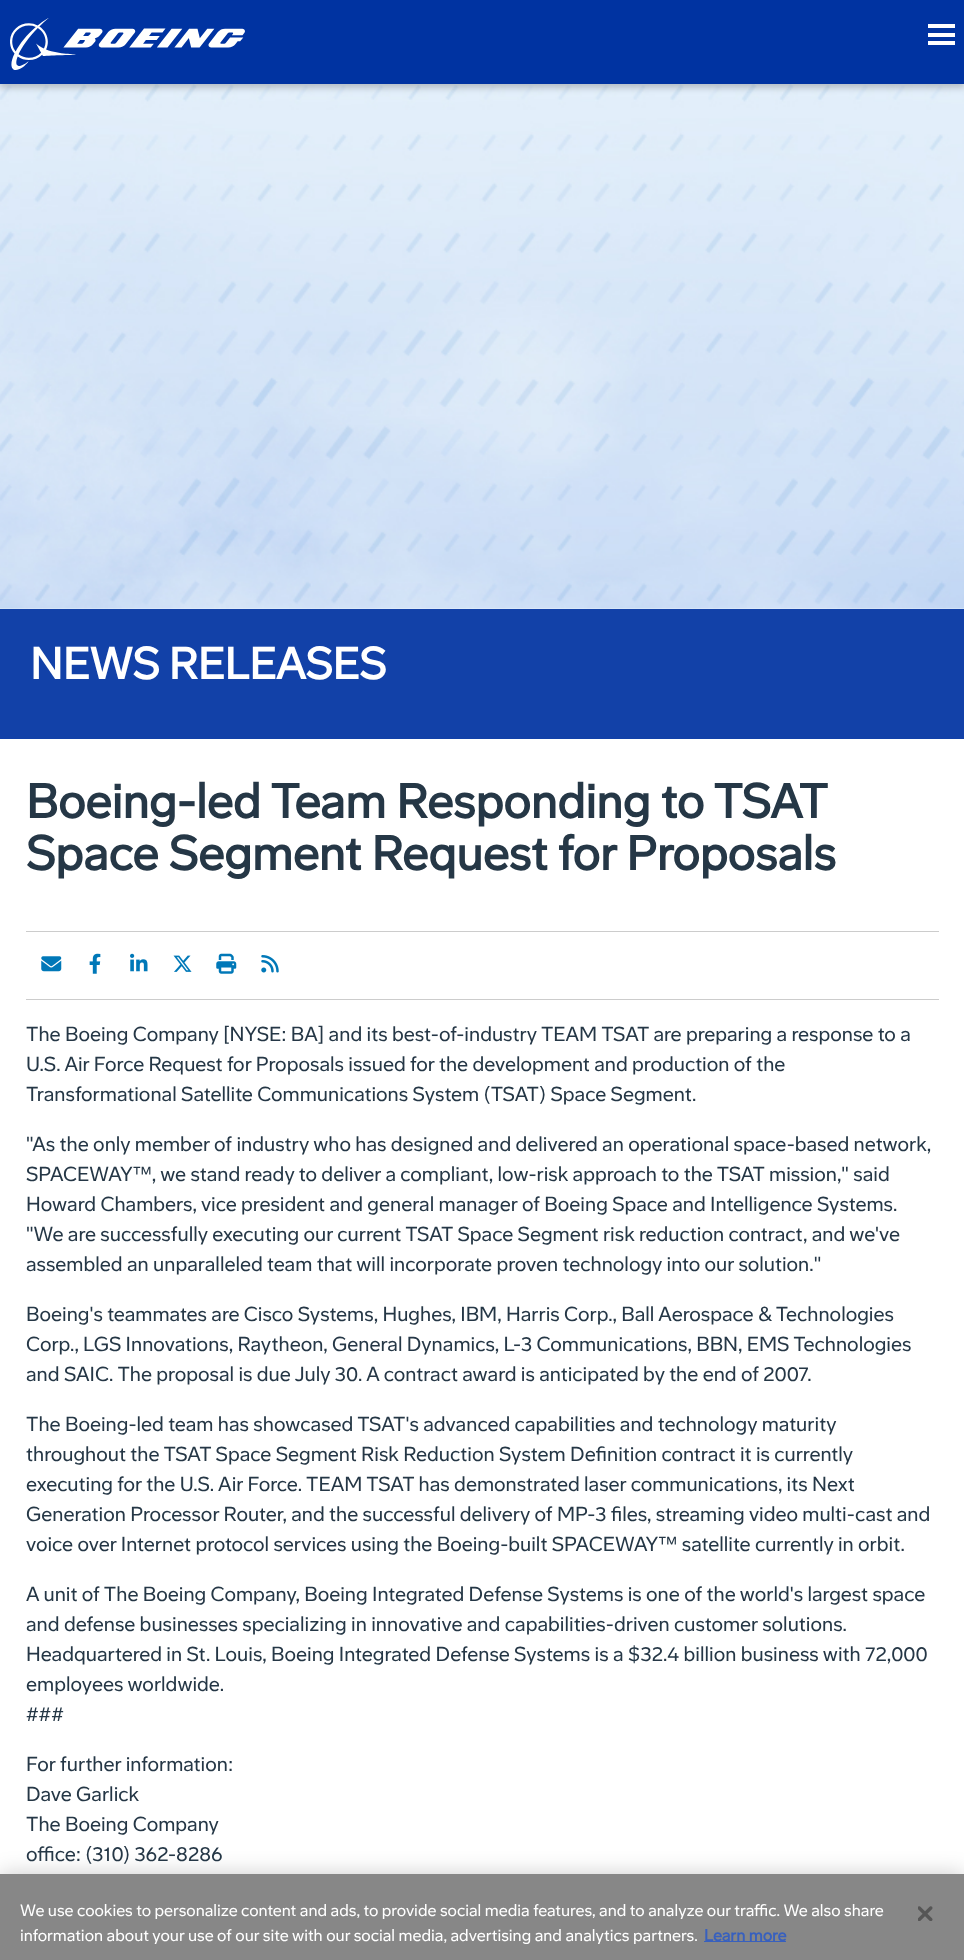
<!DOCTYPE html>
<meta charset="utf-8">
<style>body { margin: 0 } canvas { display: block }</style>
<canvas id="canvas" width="964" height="1960"></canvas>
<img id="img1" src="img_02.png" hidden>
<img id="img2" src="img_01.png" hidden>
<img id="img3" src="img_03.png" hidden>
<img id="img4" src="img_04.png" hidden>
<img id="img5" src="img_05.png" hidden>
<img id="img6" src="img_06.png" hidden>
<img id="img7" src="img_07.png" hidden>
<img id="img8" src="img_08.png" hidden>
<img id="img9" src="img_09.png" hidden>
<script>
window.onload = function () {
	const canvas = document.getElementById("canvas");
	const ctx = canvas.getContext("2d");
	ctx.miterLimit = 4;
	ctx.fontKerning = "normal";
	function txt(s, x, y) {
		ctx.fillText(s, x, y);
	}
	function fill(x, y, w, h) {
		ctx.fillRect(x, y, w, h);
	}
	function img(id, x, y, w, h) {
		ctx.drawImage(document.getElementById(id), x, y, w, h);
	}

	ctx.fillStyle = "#FFFFFF";
	fill(0, 0, 964, 1960);
	img("img1", 0, 84, 964, 525);
	ctx.fillStyle = "rgba(0, 0, 0, 0.2)";
	ctx.filter = "blur(3px)";
	ctx.beginPath();
	ctx.rect(0, 4, 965, 84);
	ctx.fill();
	ctx.filter = "none";
	ctx.fillStyle = "#0033A1";
	fill(0, 0, 964, 84);
	img("img2", 10, 18, 235, 52);
	ctx.fillStyle = "#FFFFFF";
	fill(928, 33, 27, 4);
	fill(928, 24, 27, 4);
	fill(928, 41, 27, 4);
	ctx.fillStyle = "#1241A8";
	fill(0, 609, 964, 130);
	ctx.fillStyle = "#CCCCCC";
	fill(26, 931, 913, 1);
	fill(26, 999, 913, 1);
	img("img3", 41, 956, 21, 16);
	img("img4", 89, 953, 12, 21);
	img("img5", 130, 953, 18, 19);
	img("img6", 173, 955, 19, 17);
	img("img7", 216, 953, 21, 21);
	img("img8", 261, 955, 18, 18);
	ctx.fillStyle = "rgba(0, 0, 0, 0.2)";
	ctx.filter = "blur(11px)";
	ctx.beginPath();
	ctx.rect(0, 1874, 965, 86);
	ctx.fill();
	ctx.filter = "none";
	ctx.fillStyle = "#878787";
	fill(0, 1874, 964, 86);
	ctx.fillStyle = "#3860BE";
	fill(704, 1941, 82, 1);
	img("img9", 918, 1906, 15, 15);
	ctx.font = "bold 43.75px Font";
	ctx.fillStyle = "#FFFFFF";
	txt("NEWS RELEASES", 30, 679);
	ctx.font = "bold 47.5px Font";
	ctx.fillStyle = "#253746";
	txt("Boeing-led Team Responding to TSAT", 26, 818);
	txt("Space Segment Request for Proposals", 26, 870);
	ctx.font = "20px Font";
	txt("The Boeing Company [NYSE: BA] and its best-of-industry TEAM TSAT are preparing a response to a", 26, 1041);
	txt("U.S. Air Force Request for Proposals issued for the development and production of the", 26, 1071);
	txt("Transformational Satellite Communications System (TSAT) Space Segment.", 26, 1101);
	txt("\"As the only member of industry who has designed and delivered an operational space-based network,", 26, 1151);
	txt("SPACEWAY™, we stand ready to deliver a compliant, low-risk approach to the TSAT mission,\" said", 26, 1181);
	txt("Howard Chambers, vice president and general manager of Boeing Space and Intelligence Systems.", 26, 1211);
	txt("\"We are successfully executing our current TSAT Space Segment risk reduction contract, and we've", 26, 1241);
	txt("assembled an unparalleled team that will incorporate proven technology into our solution.\"", 26, 1271);
	txt("Boeing's teammates are Cisco Systems, Hughes, IBM, Harris Corp., Ball Aerospace & Technologies", 26, 1321);
	txt("Corp., LGS Innovations, Raytheon, General Dynamics, L-3 Communications, BBN, EMS Technologies", 26, 1351);
	txt("and SAIC. The proposal is due July 30. A contract award is anticipated by the end of 2007.", 26, 1381);
	txt("The Boeing-led team has showcased TSAT's advanced capabilities and technology maturity", 26, 1431);
	txt("throughout the TSAT Space Segment Risk Reduction System Definition contract it is currently", 26, 1461);
	txt("executing for the U.S. Air Force. TEAM TSAT has demonstrated laser communications, its Next", 26, 1491);
	txt("Generation Processor Router, and the successful delivery of MP-3 files, streaming video multi-cast and", 26, 1521);
	txt("voice over Internet protocol services using the Boeing-built SPACEWAY™ satellite currently in orbit.", 26, 1551);
	txt("A unit of The Boeing Company, Boeing Integrated Defense Systems is one of the world's largest space", 26, 1601);
	txt("and defense businesses specializing in innovative and capabilities-driven customer solutions.", 26, 1631);
	txt("Headquartered in St. Louis, Boeing Integrated Defense Systems is a $32.4 billion business with 72,000", 26, 1661);
	txt("employees worldwide.", 26, 1691);
	txt("###", 26, 1721);
	txt("For further information:", 26, 1771);
	txt("Dave Garlick", 26, 1801);
	txt("The Boeing Company", 26, 1831);
	txt("office: (310) 362-8286", 26, 1861);
	ctx.font = "16.25px Font";
	ctx.fillStyle = "#FFFFFF";
	txt("We use cookies to personalize content and ads, to provide social media features, and to analyze our traffic. We also share", 20, 1916);
	txt("information about your use of our site with our social media, advertising and analytics partners.", 20, 1941);
	ctx.font = "bold 16.25px Font";
	ctx.fillStyle = "#3860BE";
	txt("Learn more", 704, 1941);
};
</script>
